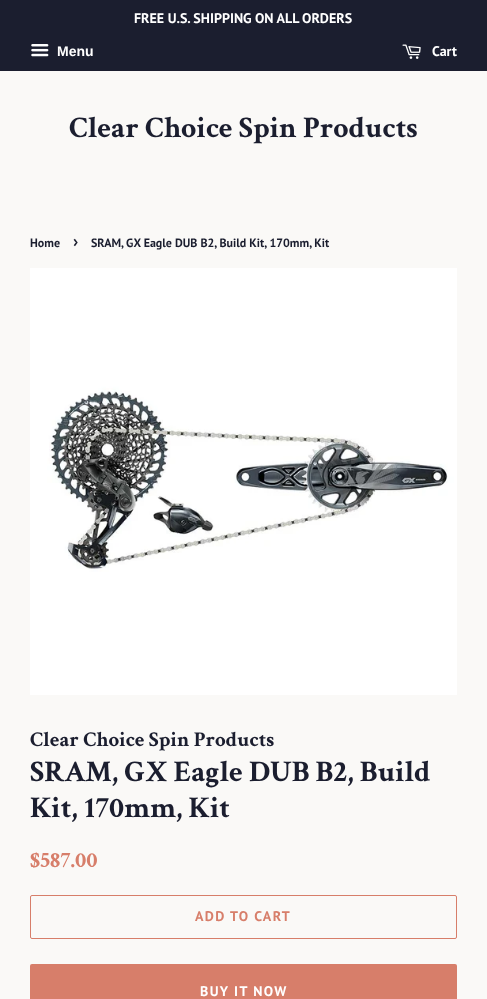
<!DOCTYPE html>
<meta charset="utf-8">
<style>body { margin: 0 } canvas { display: block }</style>
<canvas id="canvas" width="487" height="999"></canvas>
<img id="img1" src="img_01.png" hidden>
<img id="img2" src="img_02.png" hidden>
<img id="img3" src="img_03.png" hidden>
<script>
window.onload = function () {
	const canvas = document.getElementById("canvas");
	const ctx = canvas.getContext("2d");
	ctx.miterLimit = 4;
	ctx.fontKerning = "normal";
	function txt(s, x, y) {
		ctx.fillText(s, x, y);
	}
	function fill(x, y, w, h) {
		ctx.fillRect(x, y, w, h);
	}
	function round(x, y, w, h, r) {
		ctx.beginPath();
		ctx.roundRect(x, y, w, h, r);
		ctx.fill();
	}
	function img(id, x, y, w, h) {
		ctx.drawImage(document.getElementById(id), x, y, w, h);
	}

	ctx.fillStyle = "#FAF9F7";
	fill(0, 0, 487, 999);
	ctx.fillStyle = "#1B1E2F";
	fill(0, 0, 487, 71);
	img("img1", 31, 44, 18, 13);
	img("img2", 402, 44, 19, 15);
	img("img3", 30, 268, 427, 427);
	ctx.beginPath();
	ctx.roundRect(30.5, 895.5, 426, 43, 1.5);
	ctx.strokeStyle = "#D77E6A";
	ctx.stroke();
	ctx.fillStyle = "#D77E6A";
	round(30, 964, 427, 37, 2);
	ctx.font = "bold 14px PT Sans";
	ctx.fillStyle = "#FFFFFF";
	txt("FREE U.S. SHIPPING ON ALL ORDERS", 134, 23);
	ctx.font = "bold 14px Liberation Sans";
	txt("Menu", 57, 56);
	ctx.font = "bold 14px PT Sans";
	txt("Cart", 432, 56);
	ctx.font = "bold 30px Crimson Text";
	ctx.fillStyle = "#1B1E2F";
	txt("Clear Choice Spin Products", 69, 137);
	ctx.font = "bold 12px PT Sans";
	txt("Home", 30, 247);
	ctx.font = "bold 17px PT Sans";
	txt("›", 73, 247);
	ctx.font = "bold 12px PT Sans";
	txt("SRAM, GX Eagle DUB B2, Build Kit, 170mm, Kit", 91, 247);
	ctx.font = "bold 21px Crimson Text";
	txt("Clear Choice Spin Products", 30, 746);
	ctx.font = "bold 30px Crimson Text";
	txt("SRAM, GX Eagle DUB B2, Build", 30, 781);
	txt("Kit, 170mm, Kit", 30, 817);
	ctx.font = "bold 22.5px Crimson Text";
	ctx.fillStyle = "#D77E6A";
	txt("$587.00", 30, 867);
	ctx.letterSpacing = "1.4px";
	ctx.font = "bold 14px PT Sans";
	txt("ADD TO CART", 195, 921);
	ctx.fillStyle = "#FFFFFF";
	txt("BUY IT NOW", 200, 996);
};
</script>
